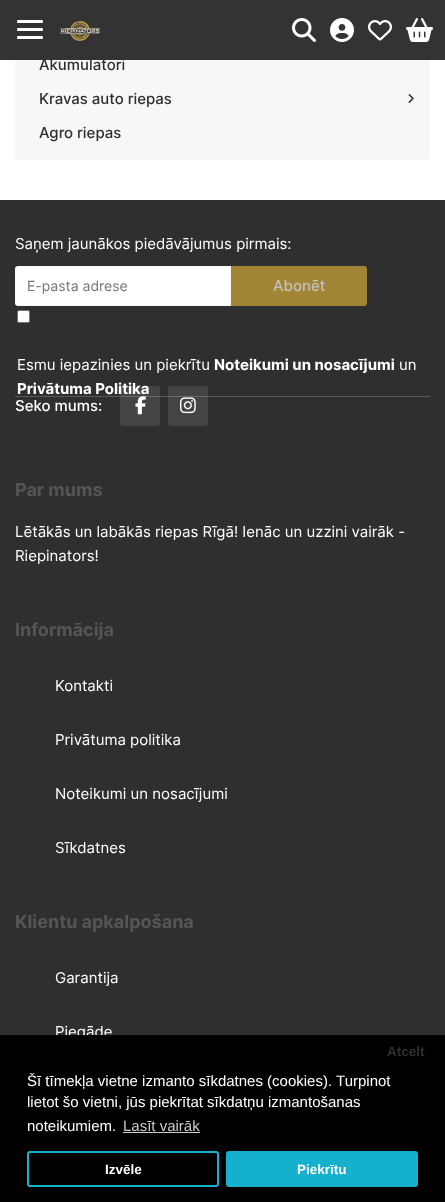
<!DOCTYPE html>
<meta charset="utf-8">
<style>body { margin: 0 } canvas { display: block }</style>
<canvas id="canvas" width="445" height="1202"></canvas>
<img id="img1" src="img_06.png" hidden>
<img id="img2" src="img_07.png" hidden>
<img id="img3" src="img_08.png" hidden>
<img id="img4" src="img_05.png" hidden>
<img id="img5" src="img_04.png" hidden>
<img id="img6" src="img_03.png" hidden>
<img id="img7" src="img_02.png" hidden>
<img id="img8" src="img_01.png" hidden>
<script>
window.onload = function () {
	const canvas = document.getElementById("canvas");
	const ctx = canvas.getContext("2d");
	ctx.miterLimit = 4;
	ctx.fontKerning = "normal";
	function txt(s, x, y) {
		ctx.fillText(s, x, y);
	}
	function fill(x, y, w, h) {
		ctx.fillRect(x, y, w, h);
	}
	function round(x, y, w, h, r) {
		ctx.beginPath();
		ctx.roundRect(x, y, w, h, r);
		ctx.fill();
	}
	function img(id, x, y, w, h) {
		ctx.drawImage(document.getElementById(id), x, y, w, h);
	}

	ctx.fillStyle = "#FFFFFF";
	fill(0, 0, 445, 1202);
	ctx.fillStyle = "#F7F7F7";
	round(15, -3, 415, 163, 3);
	img("img1", 408, 94, 6, 9);
	ctx.fillStyle = "#2F2F2F";
	fill(0, 200, 445, 835);
	ctx.fillStyle = "#595959";
	fill(15, 396, 415, 1);
	ctx.fillStyle = "#FFFFFF";
	ctx.beginPath();
	ctx.roundRect(15, 266, 216, 40, [3, 0, 0, 3]);
	ctx.fill();
	ctx.strokeStyle = "rgba(102, 113, 123, 0.05)";
	ctx.strokeRect(15.5, 266.5, 215, 39);
	ctx.fillStyle = "#A38635";
	ctx.beginPath();
	ctx.roundRect(231, 266, 136, 40, [0, 3, 3, 0]);
	ctx.fill();
	ctx.fillStyle = "rgba(255, 255, 255, 0.1)";
	round(120, 386, 40, 40, 3);
	img("img2", 135, 396, 11, 19);
	round(168, 386, 40, 40, 3);
	img("img3", 180, 397, 16, 17);
	ctx.fillStyle = "#FFFFFF";
	ctx.beginPath();
	ctx.roundRect(17.5, 310.5, 12, 12, 1.5);
	ctx.fill();
	ctx.strokeStyle = "#767676";
	ctx.stroke();
	ctx.font = "500 15px Inter";
	ctx.fillStyle = "#2F2F2F";
	txt("Akumulatori", 39, 70);
	ctx.fillStyle = "#333333";
	fill(0, 0, 445, 60);
	ctx.fillStyle = "#FFFFFF";
	round(17, 36, 26, 3, 1);
	round(17, 28, 26, 3, 1);
	round(17, 20, 26, 3, 1);
	img("img4", 406, 18, 27, 24);
	img("img5", 368, 20, 24, 21);
	img("img6", 330, 18, 24, 24);
	img("img7", 292, 18, 24, 24);
	img("img8", 60, 21, 40, 20);
	ctx.fillStyle = "#2F2F2F";
	txt("Kravas auto riepas", 39, 104);
	txt("Agro riepas", 39, 138);
	ctx.font = "15px Inter";
	ctx.fillStyle = "#FFFFFF";
	txt("Saņem jaunākos piedāvājumus pirmais:", 15, 249);
	ctx.font = "14px Inter";
	ctx.fillStyle = "#757575";
	txt("E-pasta adrese", 27, 291);
	ctx.font = "500 15px Inter";
	ctx.fillStyle = "#C1C1C1";
	txt("Abonēt", 273, 291);
	ctx.fillStyle = "#FFFFFF";
	txt("Seko mums:", 15, 411);
	ctx.font = "15px Inter";
	txt("Esmu iepazinies un piekrītu", 17, 370);
	ctx.font = "bold 15px Inter";
	txt("Noteikumi un nosacījumi", 214, 370);
	ctx.font = "15px Inter";
	txt("un", 399, 370);
	ctx.font = "bold 15px Inter";
	txt("Privātuma Politika", 17, 394);
	ctx.font = "bold 18px Inter";
	ctx.fillStyle = "#555555";
	txt("Par mums", 15, 496);
	ctx.font = "15px Inter";
	ctx.fillStyle = "#FFFFFF";
	txt("Lētākās un labākās riepas Rīgā! Ienāc un uzzini vairāk -", 15, 537);
	txt("Riepinators!", 15, 561);
	ctx.font = "bold 18px Inter";
	ctx.fillStyle = "#555555";
	txt("Informācija", 15, 636);
	ctx.font = "15px Inter";
	ctx.fillStyle = "#FFFFFF";
	txt("Kontakti", 55, 691);
	txt("Privātuma politika", 55, 745);
	txt("Noteikumi un nosacījumi", 55, 799);
	txt("Sīkdatnes", 55, 853);
	ctx.font = "bold 18px Inter";
	ctx.fillStyle = "#555555";
	txt("Klientu apkalpošana", 15, 928);
	ctx.font = "15px Inter";
	ctx.fillStyle = "#FFFFFF";
	txt("Garantija", 55, 983);
	txt("Piegāde", 55, 1037);
	ctx.fillStyle = "#000000";
	fill(0, 1035, 445, 167);
	ctx.font = "bold 13.5px Liberation Sans";
	ctx.fillStyle = "#2F2F2F";
	txt("Atcelt", 387, 1056);
	ctx.beginPath();
	ctx.roundRect(28, 1152, 190, 34, 2);
	ctx.strokeStyle = "#14B0CC";
	ctx.lineWidth = 2;
	ctx.stroke();
	ctx.fillStyle = "#FFFFFF";
	txt("Izvēle", 105, 1174);
	ctx.fillStyle = "#14B0CC";
	round(226, 1151, 192, 36, 3);
	ctx.fillStyle = "#FFFFFF";
	txt("Piekrītu", 297, 1174);
	ctx.font = "15px Liberation Sans";
	txt("Šī tīmekļa vietne izmanto sīkdatnes (cookies). Turpinot", 27, 1086);
	txt("lietot šo vietni, jūs piekrītat sīkdatņu izmantošanas", 27, 1107);
	txt("noteikumiem.", 27, 1131);
	ctx.fillStyle = "#CCCCCC";
	txt("Lasīt vairāk", 123, 1131);
	fill(123, 1132, 77, 1);
};
</script>
